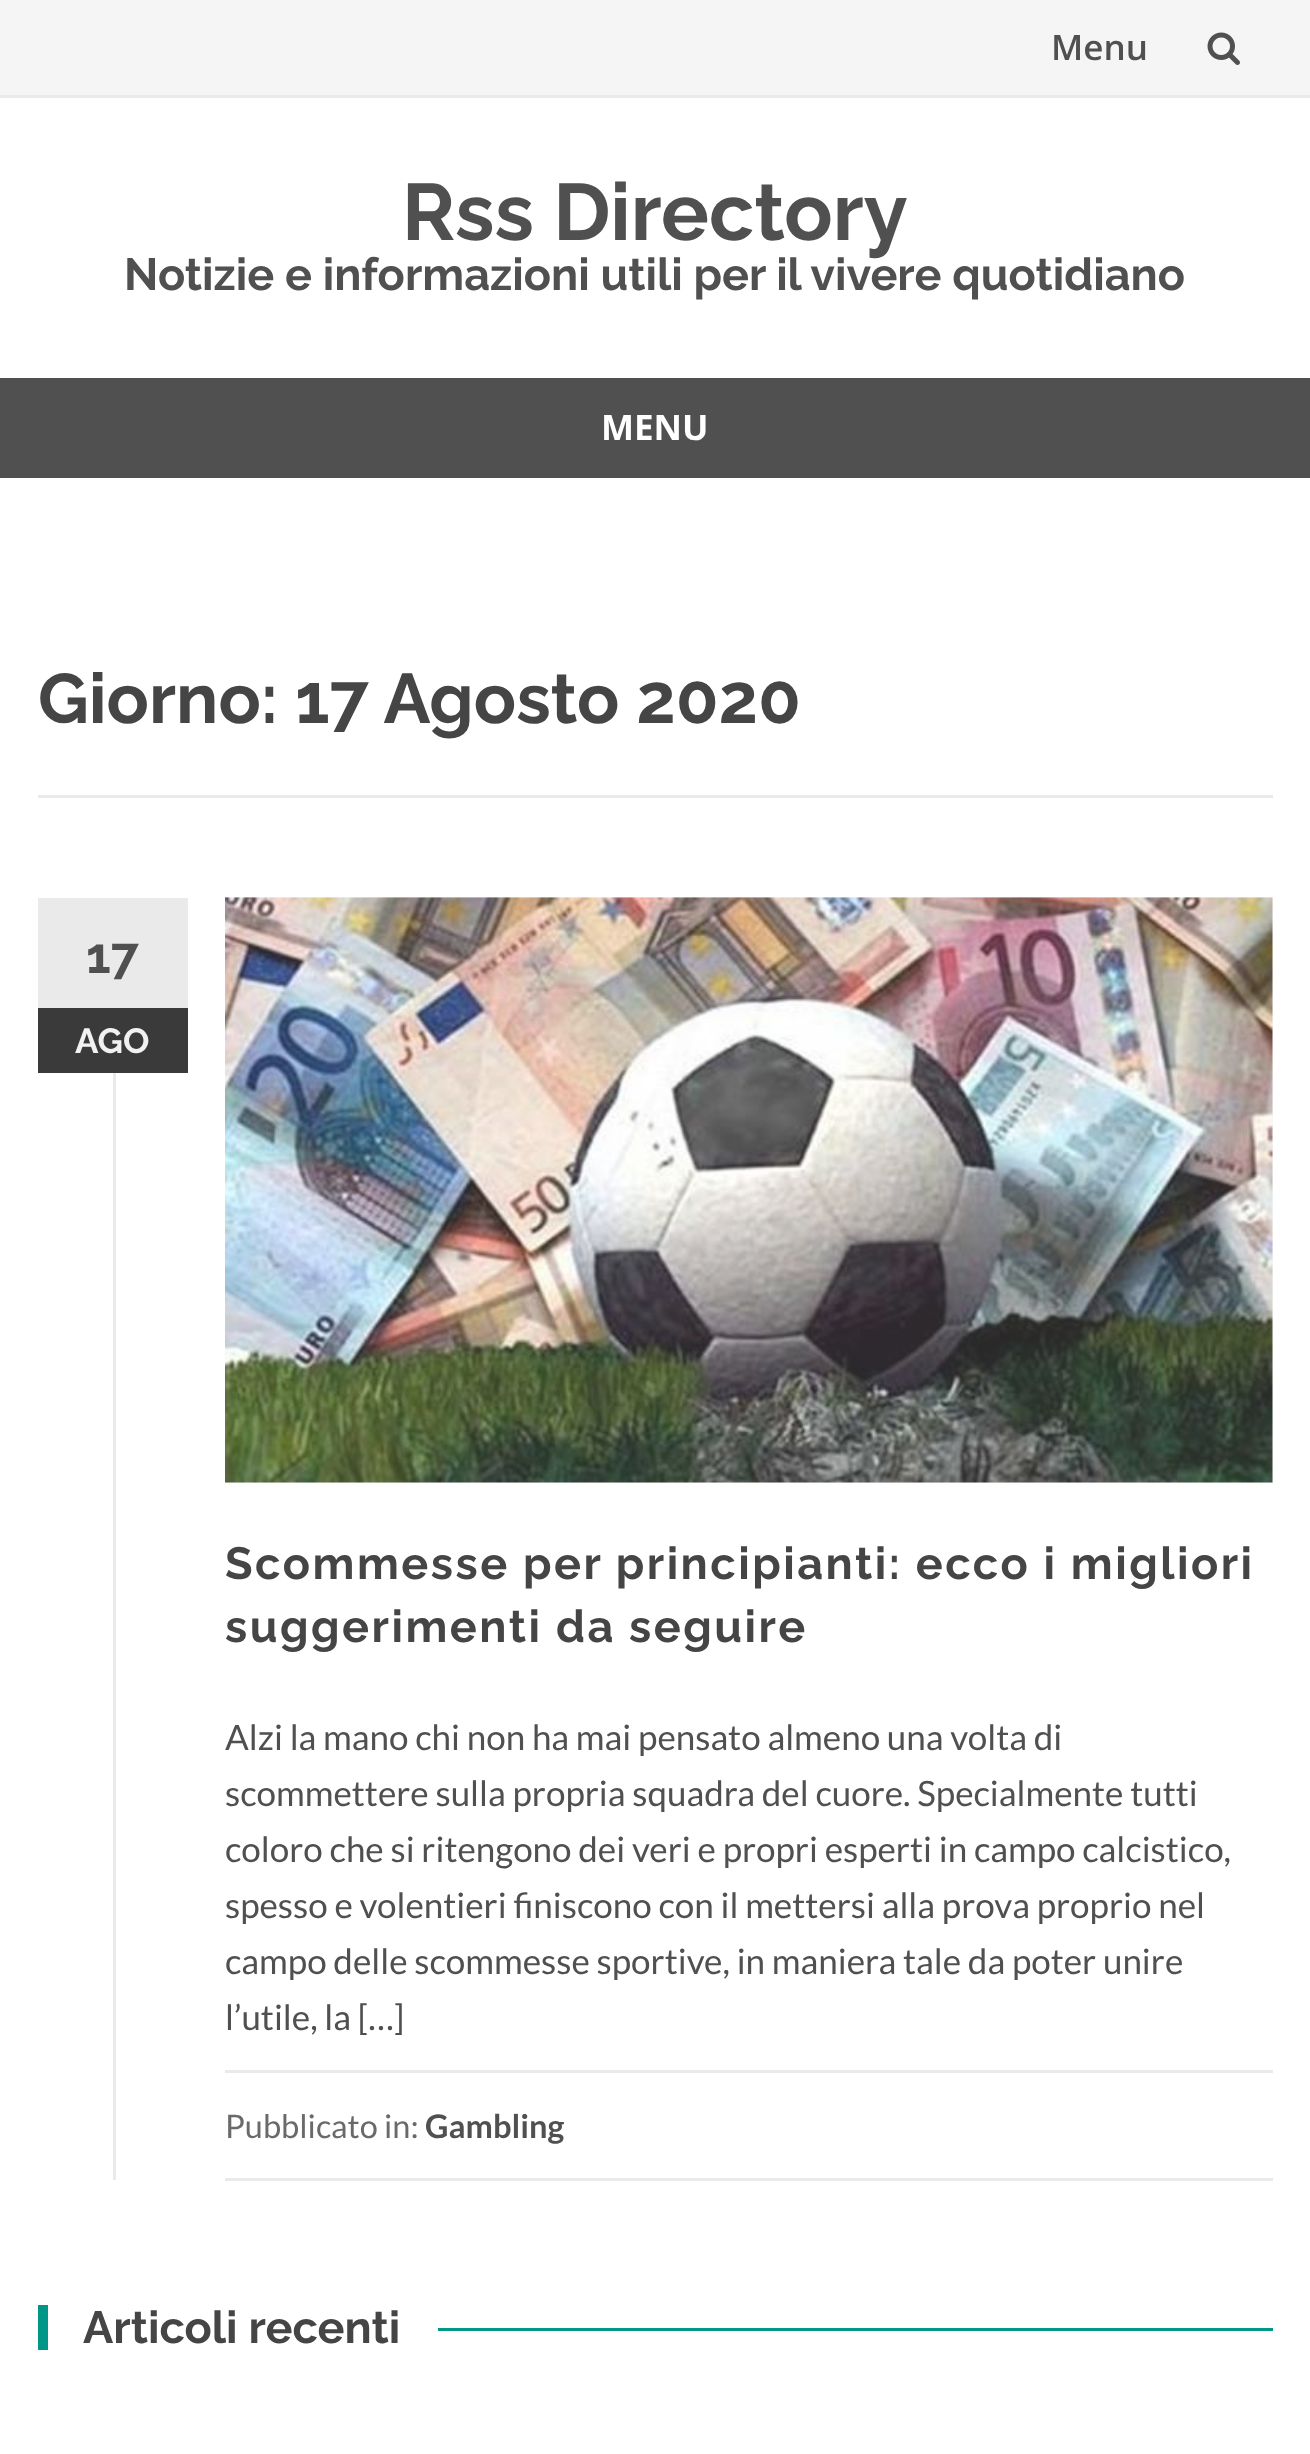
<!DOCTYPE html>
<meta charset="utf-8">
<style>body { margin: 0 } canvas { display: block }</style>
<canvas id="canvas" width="1310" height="2454"></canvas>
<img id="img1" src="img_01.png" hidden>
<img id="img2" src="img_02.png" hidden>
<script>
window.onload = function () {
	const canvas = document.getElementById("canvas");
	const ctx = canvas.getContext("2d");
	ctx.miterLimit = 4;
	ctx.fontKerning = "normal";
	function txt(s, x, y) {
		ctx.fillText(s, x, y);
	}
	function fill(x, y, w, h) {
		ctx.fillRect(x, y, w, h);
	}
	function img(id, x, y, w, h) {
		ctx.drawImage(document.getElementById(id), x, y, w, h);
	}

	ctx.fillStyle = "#FFFFFF";
	fill(0, 0, 1310, 2454);
	ctx.fillStyle = "#F5F5F5";
	fill(0, 0, 1310, 95);
	ctx.fillStyle = "#EAEAEA";
	fill(0, 95, 1310, 3);
	img("img1", 1207, 32, 33, 33);
	ctx.fillStyle = "#505050";
	fill(0, 378, 1310, 100);
	ctx.fillStyle = "#EAEAEA";
	fill(38, 795, 1235, 3);
	fill(38, 898, 150, 110);
	ctx.fillStyle = "#3A3A3A";
	fill(38, 1008, 150, 65);
	ctx.fillStyle = "#F4F4F4";
	fill(225, 898, 1048, 585);
	img("img2", 225, 897, 1048, 586);
	ctx.fillStyle = "rgba(255, 255, 255, 0.16)";
	fill(225, 898, 1048, 585);
	ctx.fillStyle = "#EAEAEA";
	fill(113, 1073, 3, 1107);
	fill(225, 2070, 1048, 3);
	fill(225, 2178, 1048, 3);
	ctx.fillStyle = "#009688";
	fill(38, 2305, 10, 45);
	fill(438, 2328, 835, 3);
	ctx.font = "600 35px Open Sans";
	ctx.fillStyle = "#505050";
	txt("Menu", 1051, 60);
	ctx.font = "bold 80px Raleway";
	txt("Rss Directory", 402, 240);
	ctx.font = "bold 45px Raleway";
	txt("Notizie e informazioni utili per il vivere quotidiano", 124, 290);
	ctx.font = "bold 35px Open Sans";
	ctx.fillStyle = "#FFFFFF";
	txt("MENU", 601, 440);
	ctx.font = "bold 70px Raleway";
	ctx.fillStyle = "#454545";
	txt("Giorno: 17 Agosto 2020", 38, 723);
	ctx.font = "bold 50px Raleway";
	ctx.fillStyle = "#505050";
	txt("17", 86, 973);
	ctx.font = "bold 35px Raleway";
	ctx.fillStyle = "#F1F1F1";
	txt("AGO", 75, 1053);
	ctx.letterSpacing = "2.5px";
	ctx.font = "bold 45px Raleway";
	ctx.fillStyle = "#454545";
	txt("Scommesse per principianti: ecco i migliori", 225, 1579);
	txt("suggerimenti da seguire", 225, 1642);
	ctx.letterSpacing = "0px";
	ctx.font = "35px Lato";
	ctx.fillStyle = "#505050";
	txt("Alzi la mano chi non ha mai pensato almeno una volta di", 225, 1750);
	txt("scommettere sulla propria squadra del cuore. Specialmente tutti", 225, 1806);
	txt("coloro che si ritengono dei veri e propri esperti in campo calcistico,", 225, 1862);
	txt("spesso e volentieri finiscono con il mettersi alla prova proprio nel", 225, 1918);
	txt("campo delle scommesse sportive, in maniera tale da poter unire", 225, 1974);
	txt("l’utile, la […]", 225, 2030);
	ctx.font = "32.5px Lato";
	ctx.fillStyle = "#6A6A6A";
	txt("Pubblicato in:", 225, 2138);
	ctx.font = "bold 32.5px Lato";
	ctx.fillStyle = "#505050";
	txt("Gambling", 425, 2138);
	ctx.font = "bold 45px Raleway";
	ctx.fillStyle = "#454545";
	txt("Articoli recenti", 83, 2343);
};
</script>
